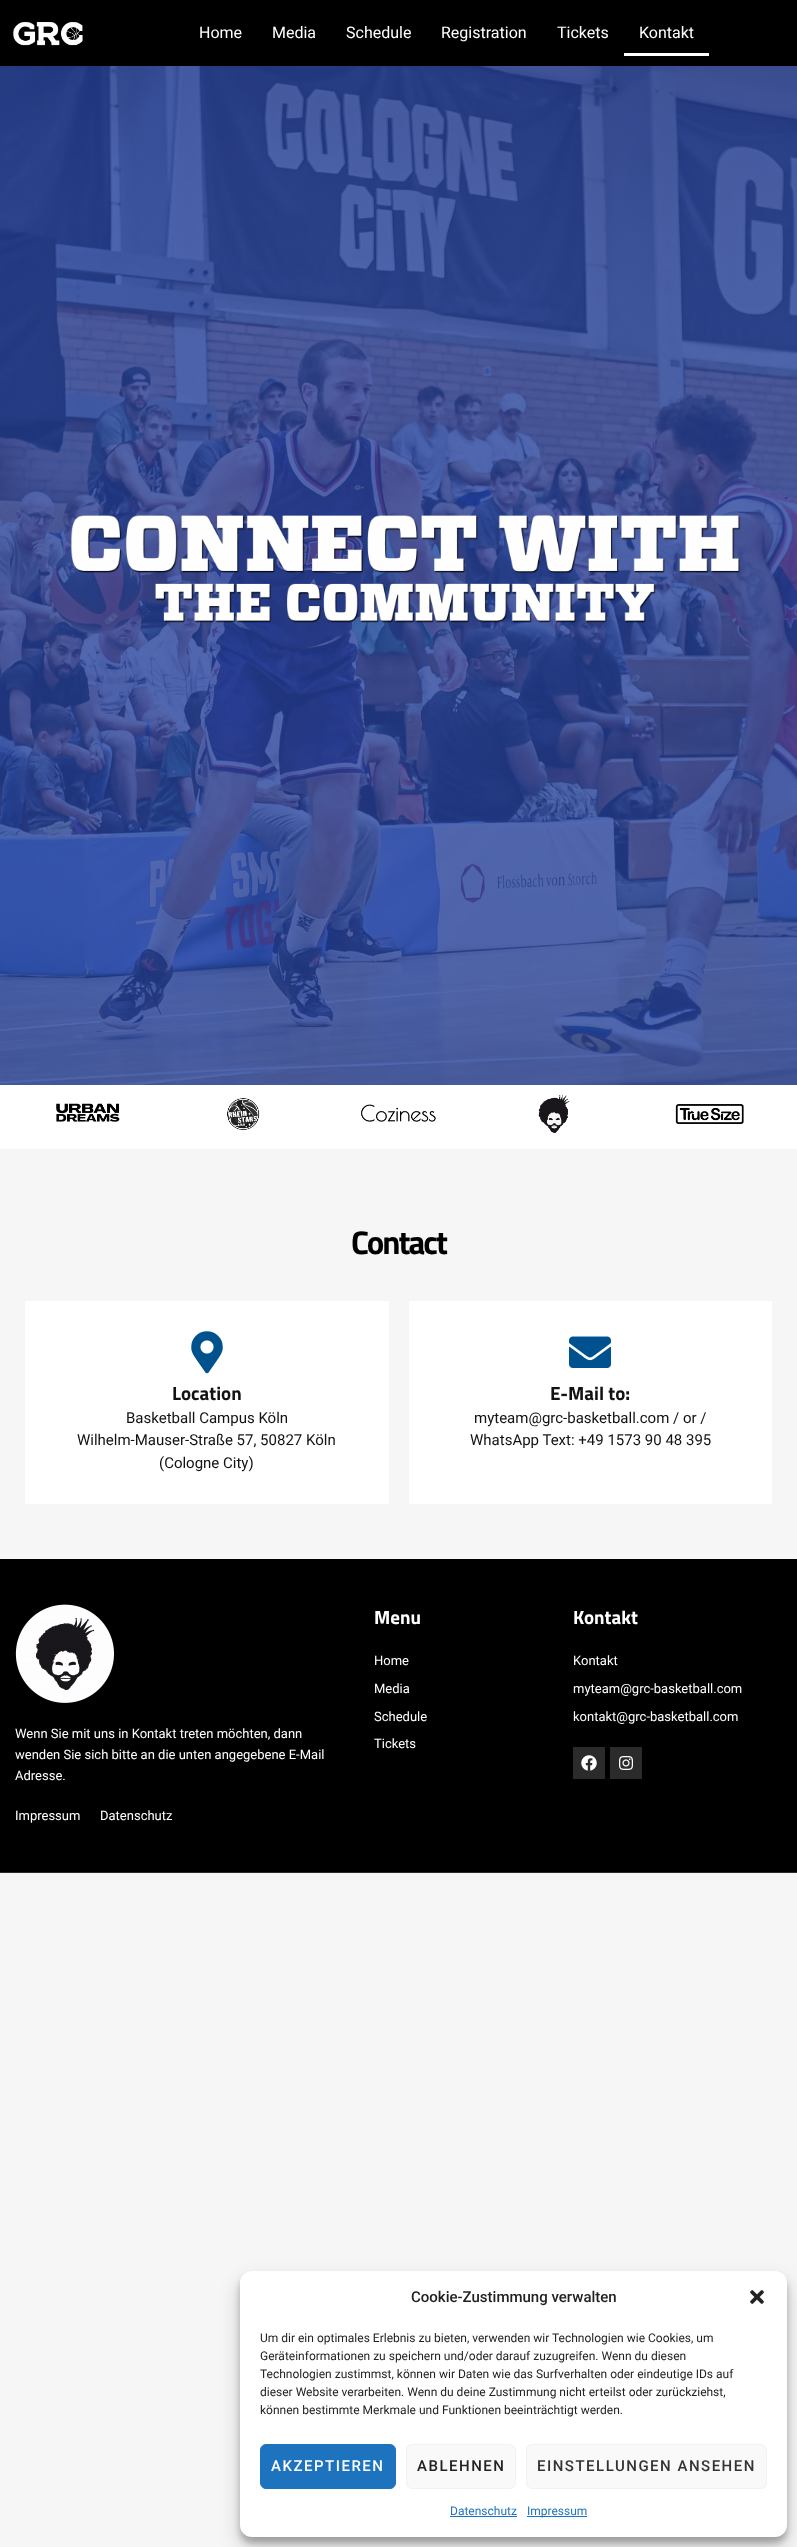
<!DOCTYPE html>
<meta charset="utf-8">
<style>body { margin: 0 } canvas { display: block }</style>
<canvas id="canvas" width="797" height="2547"></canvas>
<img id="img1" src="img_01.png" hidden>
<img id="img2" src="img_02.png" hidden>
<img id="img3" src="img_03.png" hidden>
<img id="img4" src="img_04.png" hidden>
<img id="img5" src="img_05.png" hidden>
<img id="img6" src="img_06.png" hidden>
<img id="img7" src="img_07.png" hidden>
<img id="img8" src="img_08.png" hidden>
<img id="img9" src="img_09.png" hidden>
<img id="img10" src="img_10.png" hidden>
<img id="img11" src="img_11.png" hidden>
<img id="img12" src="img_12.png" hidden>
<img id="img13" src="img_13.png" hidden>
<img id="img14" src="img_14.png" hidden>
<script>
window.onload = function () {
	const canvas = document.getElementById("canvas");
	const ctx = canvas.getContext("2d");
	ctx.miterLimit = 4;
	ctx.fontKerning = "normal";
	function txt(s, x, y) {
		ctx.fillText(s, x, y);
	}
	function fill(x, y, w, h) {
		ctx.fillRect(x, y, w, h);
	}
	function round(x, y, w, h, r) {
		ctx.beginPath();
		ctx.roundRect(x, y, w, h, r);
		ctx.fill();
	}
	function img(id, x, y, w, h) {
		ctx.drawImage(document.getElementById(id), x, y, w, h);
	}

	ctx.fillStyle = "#F6F6F6";
	fill(0, 0, 797, 2547);
	ctx.fillStyle = "#000000";
	fill(0, 0, 797, 66);
	img("img1", 13, 22, 70, 24);
	ctx.fillStyle = "#FFFFFF";
	fill(624, 53, 85, 3);
	img("img2", 0, 66, 797, 1019);
	img("img3", 70, 515, 671, 108);
	fill(0, 1085, 797, 64);
	img("img4", 56, 1103, 64, 19);
	img("img5", 227, 1098, 33, 33);
	img("img6", 361, 1104, 75, 18);
	img("img7", 538, 1095, 32, 38);
	img("img8", 675, 1104, 69, 20);
	fill(25, 1301, 364, 203);
	img("img9", 191, 1331, 32, 43);
	fill(409, 1301, 363, 203);
	img("img10", 569, 1336, 42, 32);
	ctx.fillStyle = "#000000";
	fill(0, 1559, 797, 313);
	ctx.fillStyle = "#2B2B2B";
	fill(0, 1872, 797, 1);
	fill(573, 1747, 32, 32);
	img("img11", 581, 1755, 16, 16);
	fill(610, 1747, 32, 32);
	img("img12", 619, 1756, 14, 14);
	img("img13", 15, 1604, 99, 99);
	ctx.fillStyle = "rgba(0, 0, 0, 0.23)";
	ctx.filter = "blur(3px)";
	ctx.beginPath();
	ctx.roundRect(240, 2277, 547, 266, 12);
	ctx.fill();
	ctx.filter = "none";
	ctx.fillStyle = "rgba(0, 0, 0, 0.19)";
	ctx.filter = "blur(10px)";
	ctx.beginPath();
	ctx.roundRect(240, 2281, 547, 266, 12);
	ctx.fill();
	ctx.filter = "none";
	ctx.fillStyle = "#FFFFFF";
	round(240, 2271, 547, 266, 12);
	img("img14", 750, 2290, 14, 14);
	ctx.fillStyle = "#1E73BE";
	ctx.beginPath();
	ctx.roundRect(260.5, 2444.5, 135, 44, 5.5);
	ctx.fill();
	ctx.strokeStyle = "#1E73BE";
	ctx.stroke();
	ctx.fillStyle = "#F9F9F9";
	ctx.beginPath();
	ctx.roundRect(406.5, 2444.5, 109, 44, 5.5);
	ctx.fill();
	ctx.strokeStyle = "#F2F2F2";
	ctx.stroke();
	ctx.beginPath();
	ctx.roundRect(526.5, 2444.5, 240, 44, 5.5);
	ctx.fill();
	ctx.stroke();
	ctx.fillStyle = "#1E73BE";
	fill(450, 2516, 67, 1);
	fill(527, 2516, 60, 1);
	ctx.font = "16px Roboto";
	ctx.fillStyle = "#FFFFFF";
	txt("Home", 199, 38);
	txt("Media", 272, 38);
	txt("Schedule", 346, 38);
	txt("Registration", 441, 38);
	txt("Tickets", 557, 38);
	txt("Kontakt", 639, 38);
	ctx.letterSpacing = "-2px";
	ctx.font = "bold 33px Titillium Web";
	ctx.fillStyle = "#000000";
	txt("Contact", 351, 1254);
	ctx.letterSpacing = "0px";
	ctx.font = "bold 19px Titillium Web";
	ctx.fillStyle = "#121212";
	txt("Location", 172, 1400);
	ctx.font = "15px Roboto";
	txt("Basketball Campus Köln", 126, 1423);
	txt("Wilhelm-Mauser-Straße 57, 50827 Köln", 77, 1445);
	txt("(Cologne City)", 159, 1468);
	ctx.font = "bold 19px Titillium Web";
	txt("E-Mail to:", 550, 1400);
	ctx.font = "15px Roboto";
	txt("myteam@grc-basketball.com / or /", 474, 1423);
	txt("WhatsApp Text: +49 1573 90 48 395", 470, 1445);
	ctx.font = "bold 19px Titillium Web";
	ctx.fillStyle = "#FFFFFF";
	txt("Menu", 374, 1624);
	ctx.font = "13px Roboto";
	txt("Home", 374, 1665);
	txt("Media", 374, 1693);
	txt("Schedule", 374, 1721);
	txt("Tickets", 374, 1748);
	ctx.font = "bold 19px Titillium Web";
	txt("Kontakt", 573, 1624);
	ctx.font = "13px Roboto";
	txt("Kontakt", 573, 1665);
	txt("myteam@grc-basketball.com", 573, 1693);
	txt("kontakt@grc-basketball.com", 573, 1721);
	txt("Wenn Sie mit uns in Kontakt treten möchten, dann", 15, 1738);
	txt("wenden Sie sich bitte an die unten angegebene E-Mail", 15, 1759);
	txt("Adresse.", 15, 1780);
	txt("Impressum", 15, 1820);
	txt("Datenschutz", 100, 1820);
	ctx.font = "500 15px Roboto";
	ctx.fillStyle = "#222222";
	txt("Cookie-Zustimmung verwalten", 411, 2302);
	ctx.font = "12px Roboto";
	txt("Um dir ein optimales Erlebnis zu bieten, verwenden wir Technologien wie Cookies, um", 260, 2342);
	txt("Geräteinformationen zu speichern und/oder darauf zuzugreifen. Wenn du diesen", 260, 2360);
	txt("Technologien zustimmst, können wir Daten wie das Surfverhalten oder eindeutige IDs auf", 260, 2378);
	txt("dieser Website verarbeiten. Wenn du deine Zustimmung nicht erteilst oder zurückziehst,", 260, 2396);
	txt("können bestimmte Merkmale und Funktionen beeinträchtigt werden.", 260, 2414);
	ctx.letterSpacing = "1.5px";
	ctx.font = "500 15px Roboto";
	ctx.fillStyle = "#FFFFFF";
	txt("AKZEPTIEREN", 271, 2471);
	ctx.fillStyle = "#222222";
	txt("ABLEHNEN", 417, 2471);
	ctx.fillStyle = "#333333";
	txt("EINSTELLUNGEN ANSEHEN", 537, 2471);
	ctx.letterSpacing = "0px";
	ctx.font = "12px Roboto";
	ctx.fillStyle = "#1E73BE";
	txt("Datenschutz", 450, 2515);
	txt("Impressum", 527, 2515);
};
</script>
